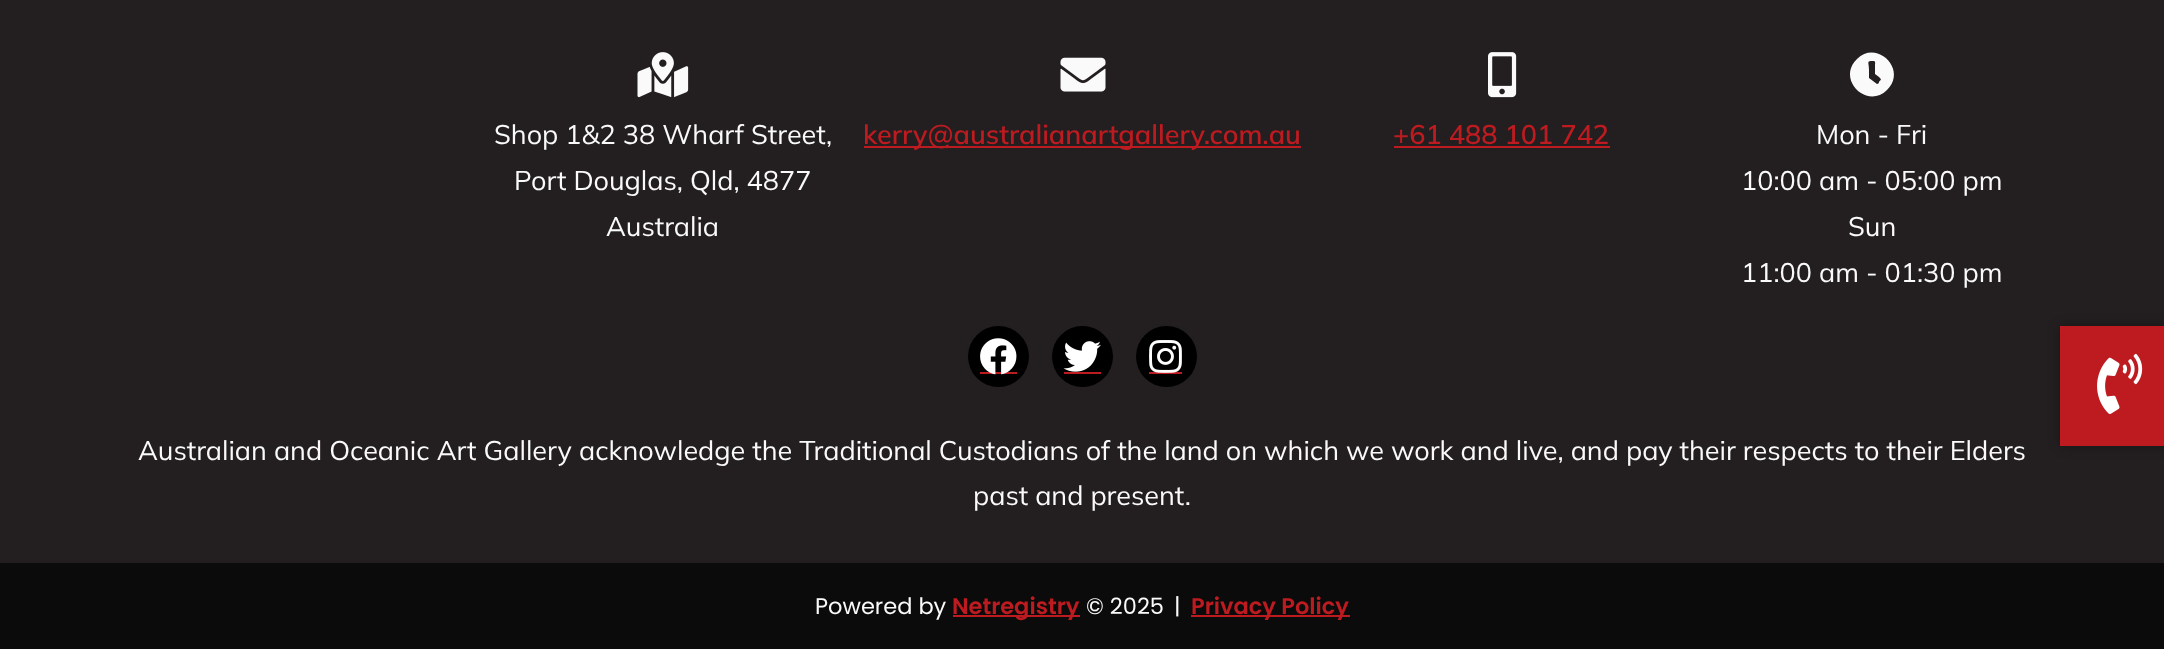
<!DOCTYPE html>
<meta charset="utf-8">
<style>body { margin: 0 } canvas { display: block }</style>
<canvas id="canvas" width="2164" height="649"></canvas>
<img id="img1" src="img_01.png" hidden>
<img id="img2" src="img_02.png" hidden>
<img id="img3" src="img_03.png" hidden>
<img id="img4" src="img_04.png" hidden>
<img id="img5" src="img_05.png" hidden>
<img id="img6" src="img_06.png" hidden>
<img id="img7" src="img_07.png" hidden>
<script>
window.onload = function () {
	const canvas = document.getElementById("canvas");
	const ctx = canvas.getContext("2d");
	ctx.miterLimit = 4;
	ctx.fontKerning = "normal";
	function txt(s, x, y) {
		ctx.fillText(s, x, y);
	}
	function fill(x, y, w, h) {
		ctx.fillRect(x, y, w, h);
	}
	function img(id, x, y, w, h) {
		ctx.drawImage(document.getElementById(id), x, y, w, h);
	}

	ctx.fillStyle = "#231F20";
	fill(0, 0, 2164, 649);
	img("img1", 637, 52, 52, 46);
	img("img2", 1060, 57, 46, 35);
	ctx.fillStyle = "#BE1B21";
	fill(864, 146, 437, 2);
	img("img3", 1488, 52, 29, 46);
	fill(1394, 146, 216, 2);
	ctx.fillStyle = "#FAFAFA";
	ctx.beginPath();
	ctx.moveTo(1857, 59);
	ctx.bezierCurveTo(1877, 39, 1908, 70, 1887, 90);
	ctx.bezierCurveTo(1867, 110, 1836, 79, 1857, 59);
	ctx.closePath();
	ctx.moveTo(1877, 84);
	ctx.bezierCurveTo(1878, 84, 1879, 83, 1879, 82);
	ctx.bezierCurveTo(1881, 79, 1882, 80, 1879, 77);
	ctx.lineTo(1875, 74);
	ctx.lineTo(1875, 66);
	ctx.bezierCurveTo(1875, 63, 1876, 61, 1873, 61);
	ctx.bezierCurveTo(1866, 61, 1869, 62, 1869, 70);
	ctx.lineTo(1869, 78);
	ctx.closePath();
	ctx.fill();
	ctx.fillStyle = "rgba(0, 0, 0, 0.3)";
	ctx.filter = "blur(6px)";
	ctx.beginPath();
	ctx.rect(2060, 326, 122, 120);
	ctx.fill();
	ctx.filter = "none";
	ctx.fillStyle = "#BE1B21";
	fill(2060, 326, 104, 120);
	img("img4", 2097, 353, 46, 61);
	ctx.fillStyle = "#000000";
	ctx.beginPath();
	ctx.arc(998.5, 356.5, 30.5, 0, Math.PI * 2);
	ctx.fill();
	ctx.fillStyle = "#BE1B21";
	fill(980, 372, 37, 2);
	img("img5", 980, 338, 37, 37);
	ctx.fillStyle = "#000000";
	ctx.beginPath();
	ctx.arc(1082.5, 356.5, 30.5, 0, Math.PI * 2);
	ctx.fill();
	img("img6", 1063, 341, 38, 31);
	ctx.fillStyle = "#BE1B21";
	fill(1064, 372, 37, 2);
	ctx.fillStyle = "#000000";
	ctx.beginPath();
	ctx.arc(1166.5, 356.5, 30.5, 0, Math.PI * 2);
	ctx.fill();
	ctx.fillStyle = "#BE1B21";
	fill(1149, 372, 33, 2);
	img("img7", 1149, 340, 33, 33);
	ctx.fillStyle = "#0C0B0B";
	fill(0, 563, 2164, 86);
	ctx.fillStyle = "#BE1B21";
	fill(953, 615, 127, 2);
	fill(1191, 615, 159, 2);
	ctx.font = "27px Mulish";
	ctx.fillStyle = "#FAFAFA";
	txt("Shop 1&2 38 Wharf Street,", 494, 144);
	txt("Port Douglas, Qld, 4877", 514, 190);
	txt("Australia", 606, 236);
	ctx.font = "600 27px Mulish";
	ctx.fillStyle = "#BE1B21";
	txt("kerry@australianartgallery.com.au", 863, 144);
	txt("+61 488 101 742", 1393, 144);
	ctx.font = "27px Mulish";
	ctx.fillStyle = "#FAFAFA";
	txt("Mon - Fri", 1816, 144);
	txt("10:00 am - 05:00 pm", 1741, 190);
	txt("Sun", 1848, 236);
	txt("11:00 am - 01:30 pm", 1741, 282);
	txt("Australian and Oceanic Art Gallery acknowledge the Traditional Custodians of the land on which we work and live, and pay their respects to their Elders", 138, 460);
	txt("past and present.", 973, 505);
	ctx.font = "22.5px Poppins";
	txt("Powered by", 815, 614);
	ctx.font = "600 22.5px Poppins";
	ctx.fillStyle = "#BE1B21";
	txt("Netregistry", 952, 614);
	ctx.font = "22.5px Poppins";
	ctx.fillStyle = "#FAFAFA";
	txt("© 2025", 1086, 614);
	txt("|", 1174, 614);
	ctx.font = "600 22.5px Poppins";
	ctx.fillStyle = "#BE1B21";
	txt("Privacy Policy", 1191, 614);
};
</script>
